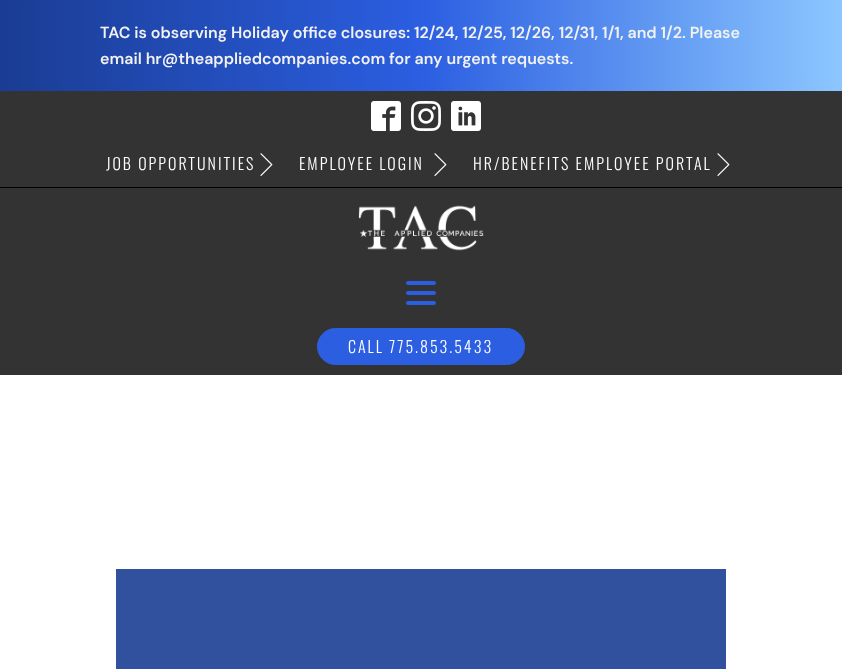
<!DOCTYPE html>
<meta charset="utf-8">
<style>body { margin: 0 } canvas { display: block }</style>
<canvas id="canvas" width="842" height="669"></canvas>
<img id="img1" src="img_01.png" hidden>
<img id="img2" src="img_02.png" hidden>
<img id="img3" src="img_03.png" hidden>
<img id="img4" src="img_04.png" hidden>
<img id="img5" src="img_05.png" hidden>
<script>
window.onload = function () {
	const canvas = document.getElementById("canvas");
	const ctx = canvas.getContext("2d");
	ctx.miterLimit = 4;
	ctx.fontKerning = "normal";
	function txt(s, x, y) {
		ctx.fillText(s, x, y);
	}
	function fill(x, y, w, h) {
		ctx.fillRect(x, y, w, h);
	}
	function round(x, y, w, h, r) {
		ctx.beginPath();
		ctx.roundRect(x, y, w, h, r);
		ctx.fill();
	}
	function img(id, x, y, w, h) {
		ctx.drawImage(document.getElementById(id), x, y, w, h);
	}
	let gradient;

	ctx.fillStyle = "#FFFFFF";
	fill(0, 0, 842, 669);
	gradient = ctx.createLinearGradient(0, 46, 842, 45);
	gradient.addColorStop(0, "#1A3C93");
	gradient.addColorStop(0.5, "#2B5EE1");
	gradient.addColorStop(1, "#8CC7FF");
	ctx.fillStyle = gradient;
	fill(0, 0, 842, 91);
	ctx.fillStyle = "#000000";
	fill(0, 187, 842, 1);
	ctx.fillStyle = "#333333";
	fill(0, 91, 842, 96);
	img("img1", 371, 101, 30, 30);
	img("img2", 411, 101, 30, 30);
	img("img3", 451, 101, 30, 30);
	img("img4", 260, 153, 13, 23);
	img("img4", 434, 153, 13, 23);
	img("img4", 717, 153, 13, 23);
	fill(0, 188, 842, 187);
	img("img5", 358, 205, 126, 46);
	ctx.fillStyle = "#2B5EE1";
	round(406, 281, 30, 4, 2);
	round(406, 291, 30, 4, 2);
	round(406, 301, 30, 4, 2);
	ctx.beginPath();
	ctx.roundRect(317.5, 328.5, 207, 36, 18);
	ctx.fill();
	ctx.strokeStyle = "#2B5EE1";
	ctx.stroke();
	ctx.fillStyle = "#31509E";
	fill(116, 569, 610, 100);
	ctx.font = "600 16px DM Sans";
	ctx.fillStyle = "#F2F2F2";
	txt("TAC is observing Holiday office closures: 12/24, 12/25, 12/26, 12/31, 1/1, and 1/2. Please", 100, 38);
	txt("email hr@theappliedcompanies.com for any urgent requests.", 100, 64);
	ctx.letterSpacing = "2px";
	ctx.font = "300 16px Oswald";
	ctx.fillStyle = "#FFFFFF";
	txt("JOB OPPORTUNITIES", 106, 170);
	txt("EMPLOYEE LOGIN", 299, 170);
	txt("HR/BENEFITS EMPLOYEE PORTAL", 473, 170);
	txt("CALL 775.853.5433", 348, 353);
};
</script>
